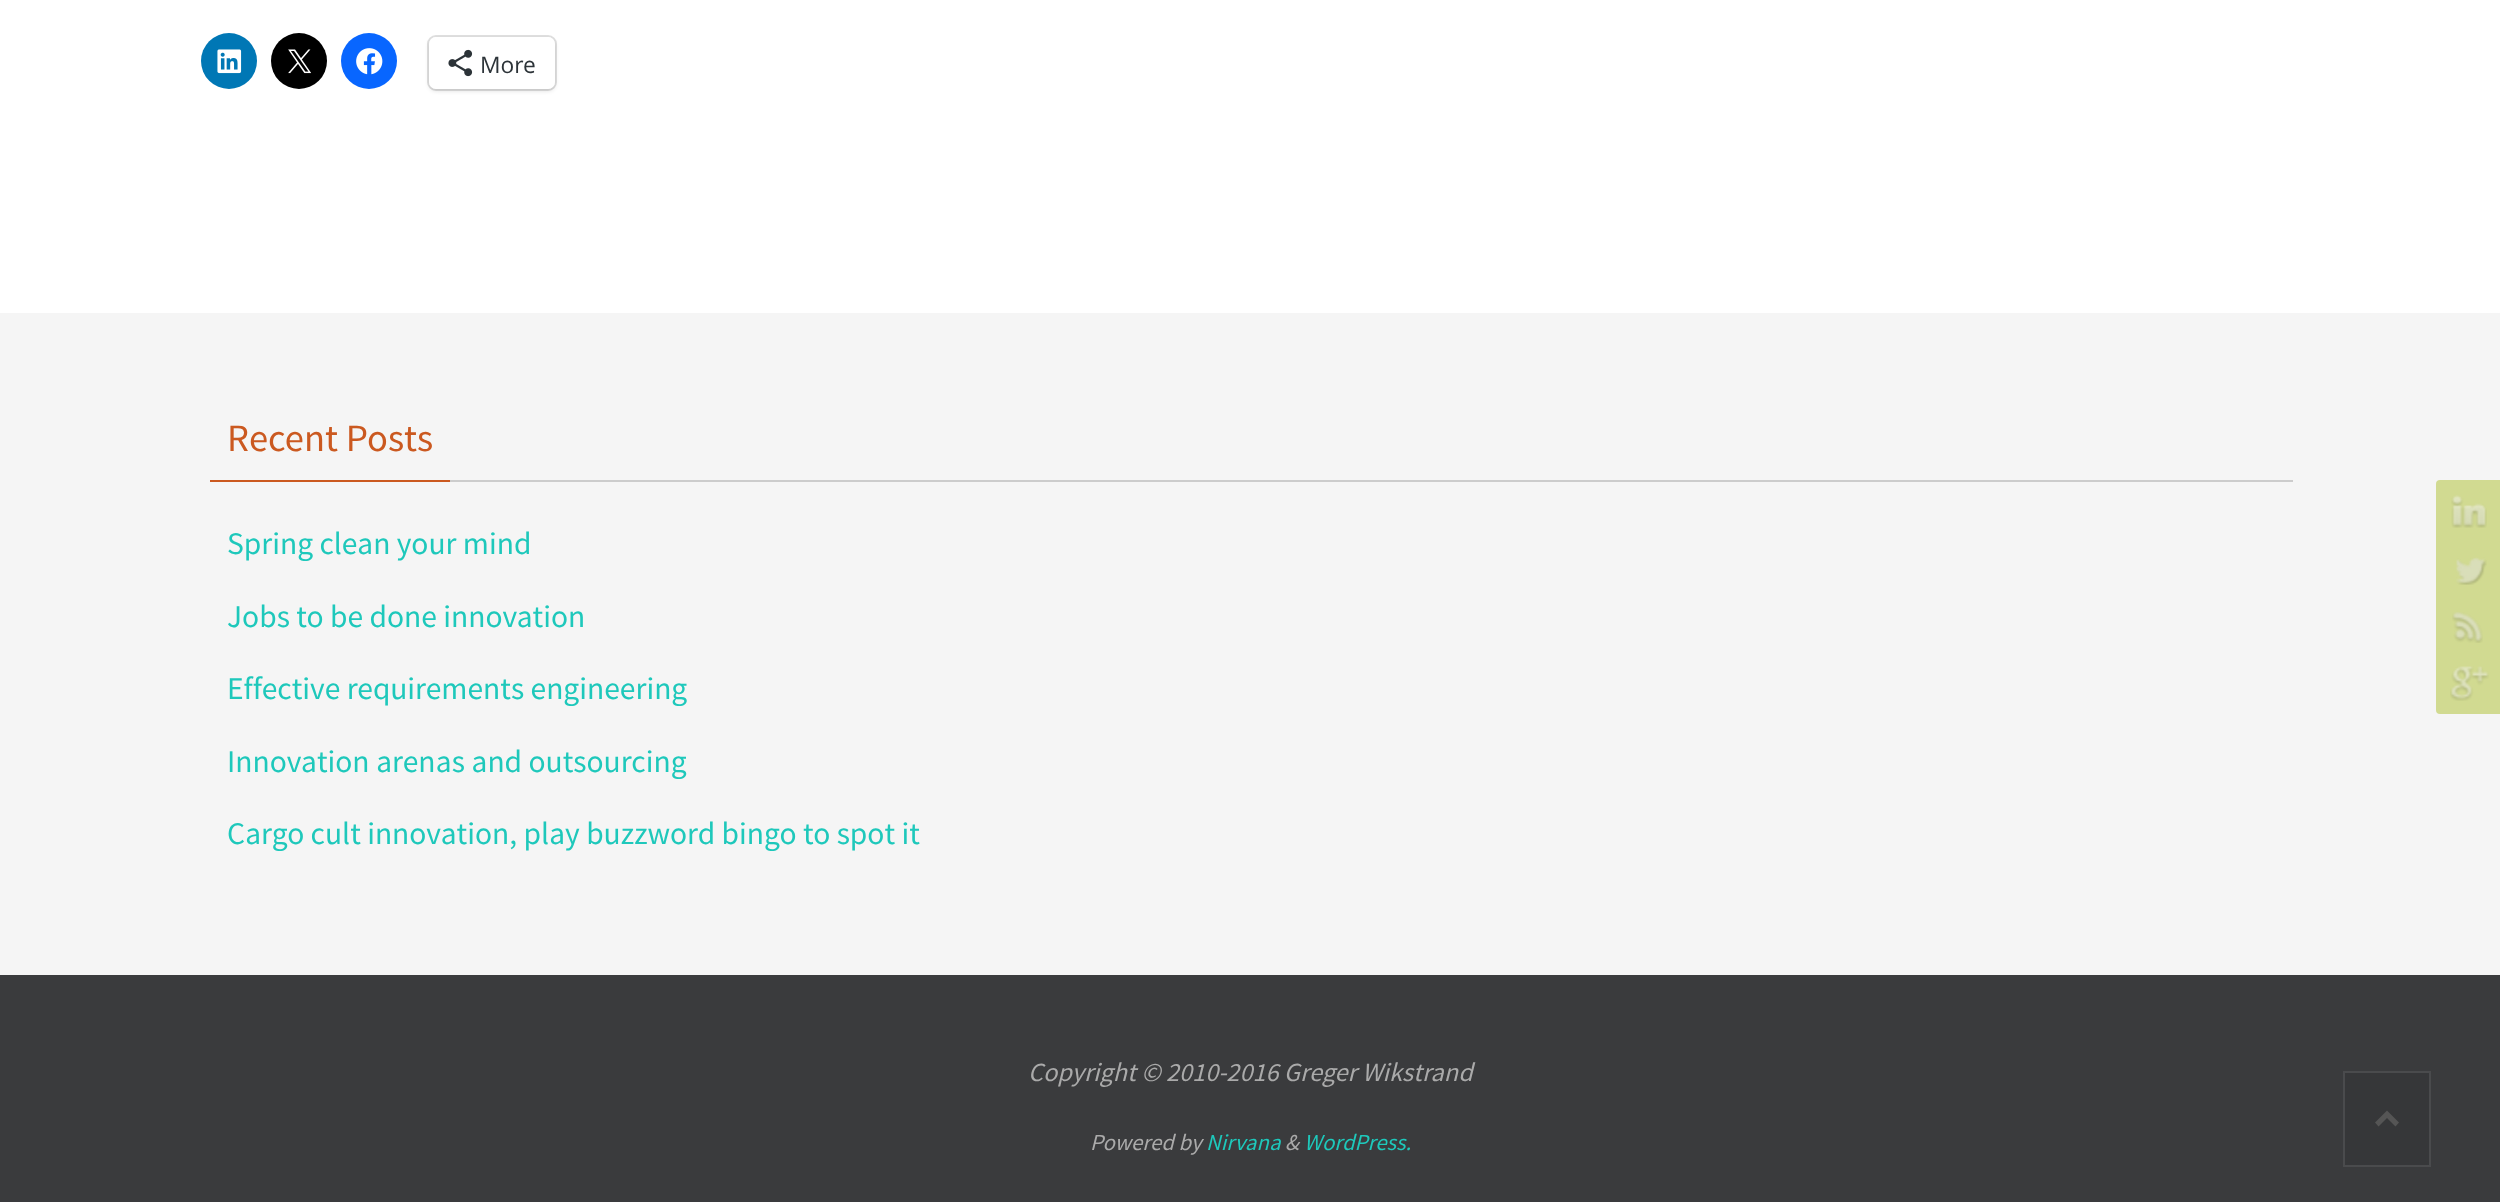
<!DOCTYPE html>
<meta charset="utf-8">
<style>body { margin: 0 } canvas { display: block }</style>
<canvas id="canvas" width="2500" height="1202"></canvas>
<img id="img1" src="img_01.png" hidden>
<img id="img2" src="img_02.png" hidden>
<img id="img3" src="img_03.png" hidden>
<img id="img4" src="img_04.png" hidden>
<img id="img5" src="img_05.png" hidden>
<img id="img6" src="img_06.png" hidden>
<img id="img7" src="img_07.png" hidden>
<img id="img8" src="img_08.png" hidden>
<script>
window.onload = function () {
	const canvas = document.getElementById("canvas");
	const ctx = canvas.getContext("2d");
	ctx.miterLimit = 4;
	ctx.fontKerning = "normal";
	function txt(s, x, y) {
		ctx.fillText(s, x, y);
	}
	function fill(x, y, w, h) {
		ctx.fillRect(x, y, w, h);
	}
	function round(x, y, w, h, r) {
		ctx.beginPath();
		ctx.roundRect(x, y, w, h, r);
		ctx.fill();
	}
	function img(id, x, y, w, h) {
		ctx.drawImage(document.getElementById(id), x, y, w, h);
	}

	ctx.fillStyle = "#FFFFFF";
	fill(0, 0, 2500, 1202);
	ctx.fillStyle = "#0077B5";
	ctx.beginPath();
	ctx.arc(229, 61, 28, 0, Math.PI * 2);
	ctx.fill();
	img("img1", 217, 49, 25, 25);
	ctx.fillStyle = "#000000";
	ctx.beginPath();
	ctx.arc(299, 61, 28, 0, Math.PI * 2);
	ctx.fill();
	img("img2", 288, 49, 23, 25);
	ctx.fillStyle = "#0866FF";
	ctx.beginPath();
	ctx.arc(369, 61, 28, 0, Math.PI * 2);
	ctx.fill();
	img("img3", 356, 48, 27, 27);
	ctx.beginPath();
	ctx.roundRect(428, 36, 128, 54, 8);
	ctx.strokeStyle = "#E0E0E0";
	ctx.lineWidth = 2;
	ctx.stroke();
	ctx.fillStyle = "rgba(0, 0, 0, 0.12)";
	ctx.filter = "blur(2px)";
	ctx.beginPath();
	ctx.roundRect(429, 39, 126, 52, 7);
	ctx.fill();
	ctx.filter = "none";
	ctx.fillStyle = "#FFFFFF";
	round(429, 37, 126, 52, 7);
	img("img4", 448, 49, 25, 28);
	ctx.fillStyle = "#F5F5F5";
	fill(0, 313, 2500, 662);
	ctx.fillStyle = "#CCCCCC";
	fill(450, 480, 1843, 2);
	ctx.fillStyle = "#CB5920";
	fill(210, 480, 240, 2);
	ctx.fillStyle = "#3A3B3D";
	fill(0, 975, 2500, 227);
	ctx.fillStyle = "rgba(0, 0, 0, 0.06)";
	fill(2343, 1071, 88, 96);
	ctx.strokeStyle = "rgba(255, 255, 255, 0.1)";
	ctx.strokeRect(2344, 1072, 86, 94);
	ctx.fillStyle = "#555555";
	ctx.beginPath();
	ctx.moveTo(2375, 1122.5);
	ctx.lineTo(2387, 1110.5);
	ctx.lineTo(2399, 1122.5);
	ctx.lineTo(2395.5, 1126.5);
	ctx.lineTo(2387, 1118);
	ctx.lineTo(2378.5, 1126.5);
	ctx.closePath();
	ctx.fill();
	ctx.fillStyle = "#D1DA91";
	round(2436, 480, 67, 66, 4);
	img("img5", 2451, 495, 36, 33);
	round(2436, 536, 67, 66, 4);
	img("img6", 2456, 557, 31, 28);
	round(2436, 592, 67, 66, 4);
	img("img7", 2452, 612, 31, 31);
	round(2436, 648, 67, 66, 4);
	img("img8", 2450, 666, 39, 35);
	ctx.font = "22.75px Open Sans";
	ctx.fillStyle = "#2C3338";
	txt("More", 480, 73);
	ctx.font = "38.5px Source Sans Pro";
	ctx.fillStyle = "#CB5920";
	txt("Recent Posts", 227, 451);
	ctx.font = "31.5px Source Sans Pro";
	ctx.fillStyle = "#1EC8BB";
	txt("Spring clean your mind", 227, 554);
	txt("Jobs to be done innovation", 227, 627);
	txt("Effective requirements engineering", 227, 699);
	txt("Innovation arenas and outsourcing", 227, 772);
	txt("Cargo cult innovation, play buzzword bingo to spot it", 227, 844);
	ctx.font = "italic 26.25px Source Sans Pro";
	ctx.fillStyle = "#AAAAAA";
	txt("Copyright © 2010-2016 Greger Wikstrand", 1028, 1081);
	ctx.font = "italic 22.75px Source Sans Pro";
	txt("Powered by", 1090, 1150);
	ctx.fillStyle = "#1EC8BB";
	txt("Nirvana", 1206, 1150);
	ctx.fillStyle = "#AAAAAA";
	txt("&", 1285, 1150);
	ctx.fillStyle = "#1EC8BB";
	txt("WordPress.", 1304, 1150);
};
</script>
